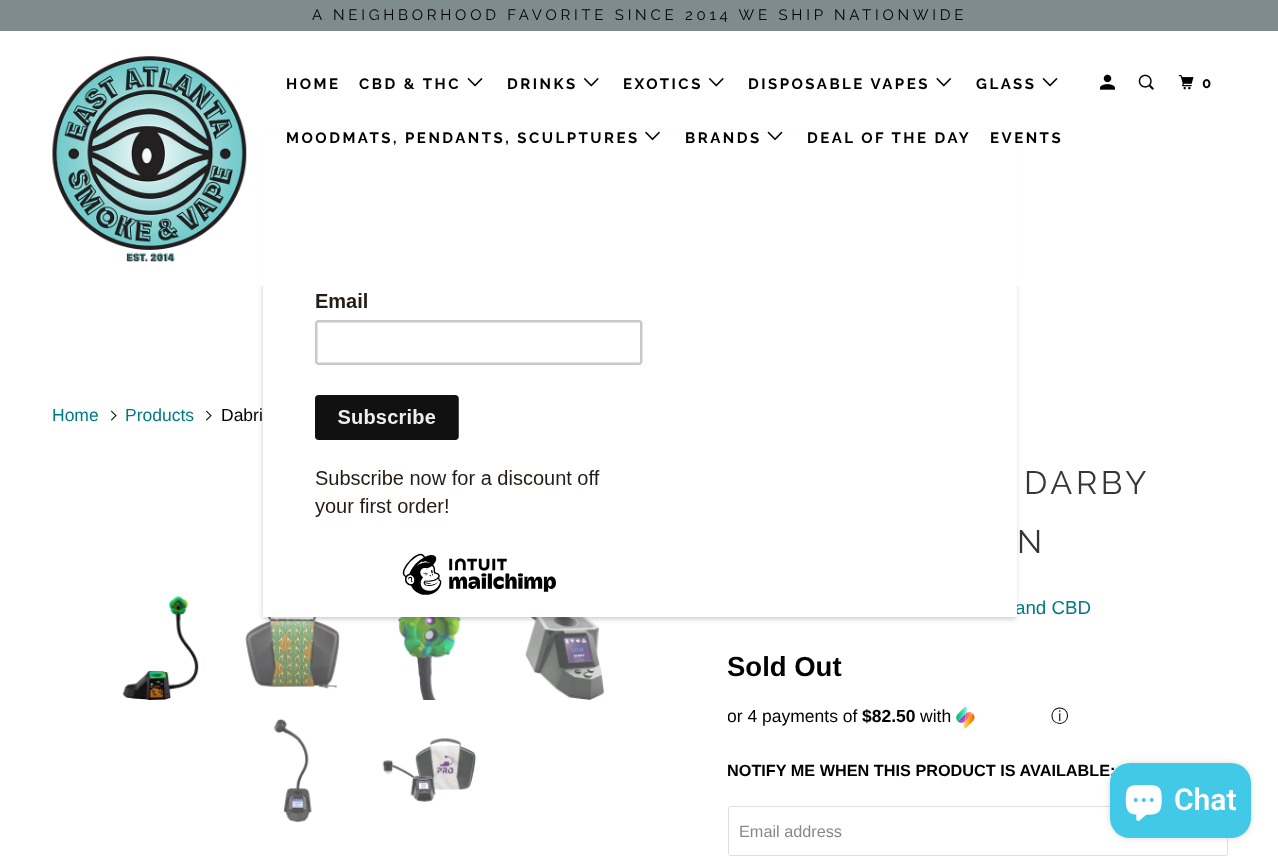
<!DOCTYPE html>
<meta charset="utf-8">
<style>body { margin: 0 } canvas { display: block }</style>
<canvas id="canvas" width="1278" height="863"></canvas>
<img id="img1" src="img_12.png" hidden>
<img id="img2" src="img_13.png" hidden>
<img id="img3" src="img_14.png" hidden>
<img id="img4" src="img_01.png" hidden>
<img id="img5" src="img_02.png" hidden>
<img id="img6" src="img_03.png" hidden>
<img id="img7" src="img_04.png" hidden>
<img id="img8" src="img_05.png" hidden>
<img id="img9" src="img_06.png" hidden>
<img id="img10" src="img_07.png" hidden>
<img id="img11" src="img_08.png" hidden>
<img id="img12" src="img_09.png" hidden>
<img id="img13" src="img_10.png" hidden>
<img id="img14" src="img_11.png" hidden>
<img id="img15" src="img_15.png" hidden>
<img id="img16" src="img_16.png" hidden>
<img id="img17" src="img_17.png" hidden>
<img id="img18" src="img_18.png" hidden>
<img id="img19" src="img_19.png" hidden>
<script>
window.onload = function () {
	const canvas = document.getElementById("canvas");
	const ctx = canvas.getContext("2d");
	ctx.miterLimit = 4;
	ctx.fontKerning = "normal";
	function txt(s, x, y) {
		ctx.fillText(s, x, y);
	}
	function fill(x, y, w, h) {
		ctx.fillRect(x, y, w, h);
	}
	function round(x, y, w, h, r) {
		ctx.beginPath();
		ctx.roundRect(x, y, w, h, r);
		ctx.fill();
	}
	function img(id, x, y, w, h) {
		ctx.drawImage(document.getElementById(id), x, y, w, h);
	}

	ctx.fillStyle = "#FFFFFF";
	fill(0, 0, 1278, 863);
	ctx.fillStyle = "#7F8C8D";
	fill(0, 0, 1278, 31);
	img("img1", 245, 617, 95, 72);
	img("img2", 398, 617, 63, 83);
	img("img3", 525, 617, 80, 83);
	ctx.fillStyle = "rgba(0, 0, 0, 0.2)";
	ctx.filter = "blur(2.5px)";
	ctx.beginPath();
	ctx.rect(263, 133, 753, 486);
	ctx.fill();
	ctx.filter = "none";
	ctx.fillStyle = "#FFFFFF";
	fill(259, 129, 761, 157);
	img("img4", 52, 56, 195, 206);
	img("img5", 467, 77, 16, 10);
	img("img6", 583, 77, 16, 10);
	img("img6", 708, 77, 16, 10);
	img("img7", 936, 77, 16, 10);
	img("img5", 1042, 77, 16, 10);
	img("img8", 645, 131, 15, 10);
	img("img9", 767, 131, 16, 10);
	img("img10", 1100, 74, 15, 16);
	img("img11", 1138, 74, 16, 16);
	img("img12", 1178, 75, 16, 15);
	img("img13", 111, 410, 6, 11);
	img("img13", 206, 410, 6, 11);
	img("img14", 122, 596, 77, 104);
	img("img15", 273, 718, 39, 105);
	img("img16", 382, 737, 95, 65);
	img("img17", 956, 706, 19, 23);
	ctx.beginPath();
	ctx.roundRect(728.5, 806.5, 499, 49, 2);
	ctx.strokeStyle = "#DFDFDF";
	ctx.stroke();
	ctx.fillStyle = "rgba(0, 0, 0, 0.15)";
	ctx.filter = "blur(3px)";
	ctx.beginPath();
	ctx.roundRect(1110, 763, 141, 75, 20);
	ctx.fill();
	ctx.filter = "none";
	ctx.letterSpacing = "3.75px";
	ctx.font = "15px Raleway";
	ctx.fillStyle = "#000000";
	txt("A NEIGHBORHOOD FAVORITE SINCE 2014 WE SHIP NATIONWIDE", 312, 20);
	ctx.letterSpacing = "2.5px";
	ctx.font = "bold 15px Raleway";
	txt("HOME", 286, 89);
	txt("CBD & THC", 359, 89);
	txt("DRINKS", 507, 89);
	txt("EXOTICS", 623, 89);
	txt("DISPOSABLE VAPES", 748, 89);
	txt("GLASS", 976, 89);
	txt("MOODMATS, PENDANTS, SCULPTURES", 286, 143);
	txt("BRANDS", 685, 143);
	txt("DEAL OF THE DAY", 807, 143);
	txt("EVENTS", 990, 143);
	txt("0", 1202, 88);
	ctx.letterSpacing = "0px";
	ctx.font = "17.5px Liberation Sans";
	ctx.fillStyle = "#007A87";
	txt("Home", 52, 421);
	txt("Products", 125, 421);
	ctx.fillStyle = "#000000";
	txt("Dabri", 221, 421);
	ctx.letterSpacing = "3.75px";
	ctx.font = "32.5px Raleway";
	ctx.fillStyle = "#363636";
	txt("DARBY", 1024, 494);
	txt("N", 1017, 553);
	ctx.letterSpacing = "0px";
	ctx.font = "18.75px Liberation Sans";
	ctx.fillStyle = "#007A87";
	txt("and CBD", 1015, 614);
	ctx.font = "bold 27.5px Liberation Sans";
	ctx.fillStyle = "#000000";
	txt("Sold Out", 727, 676);
	ctx.save();
	ctx.beginPath();
	ctx.rect(728, 705, 500, 24);
	ctx.clip();
	ctx.font = "17.5px Liberation Sans";
	txt("or 4 payments of", 727, 722);
	ctx.restore();
	ctx.font = "bold 17.5px Liberation Sans";
	txt("$82.50", 862, 722);
	ctx.font = "17.5px Liberation Sans";
	txt("with", 920, 722);
	ctx.font = "500 17.5px WenQuanYi Zen Hei";
	txt("ⓘ", 1051, 722);
	ctx.font = "bold 16.25px Liberation Sans";
	txt("NOTIFY ME WHEN THIS PRODUCT IS AVAILABLE:", 727, 776);
	ctx.font = "16.25px Liberation Sans";
	ctx.fillStyle = "#888888";
	txt("Email address", 739, 837);
	img("img18", 263, 286, 754, 331);
	ctx.fillStyle = "#42C9E7";
	round(1110, 763, 141, 75, 20);
	img("img19", 1125, 785, 37, 36);
	ctx.font = "600 30px Roboto";
	ctx.fillStyle = "#FFFFFF";
	txt("Chat", 1174, 810);
};
</script>
